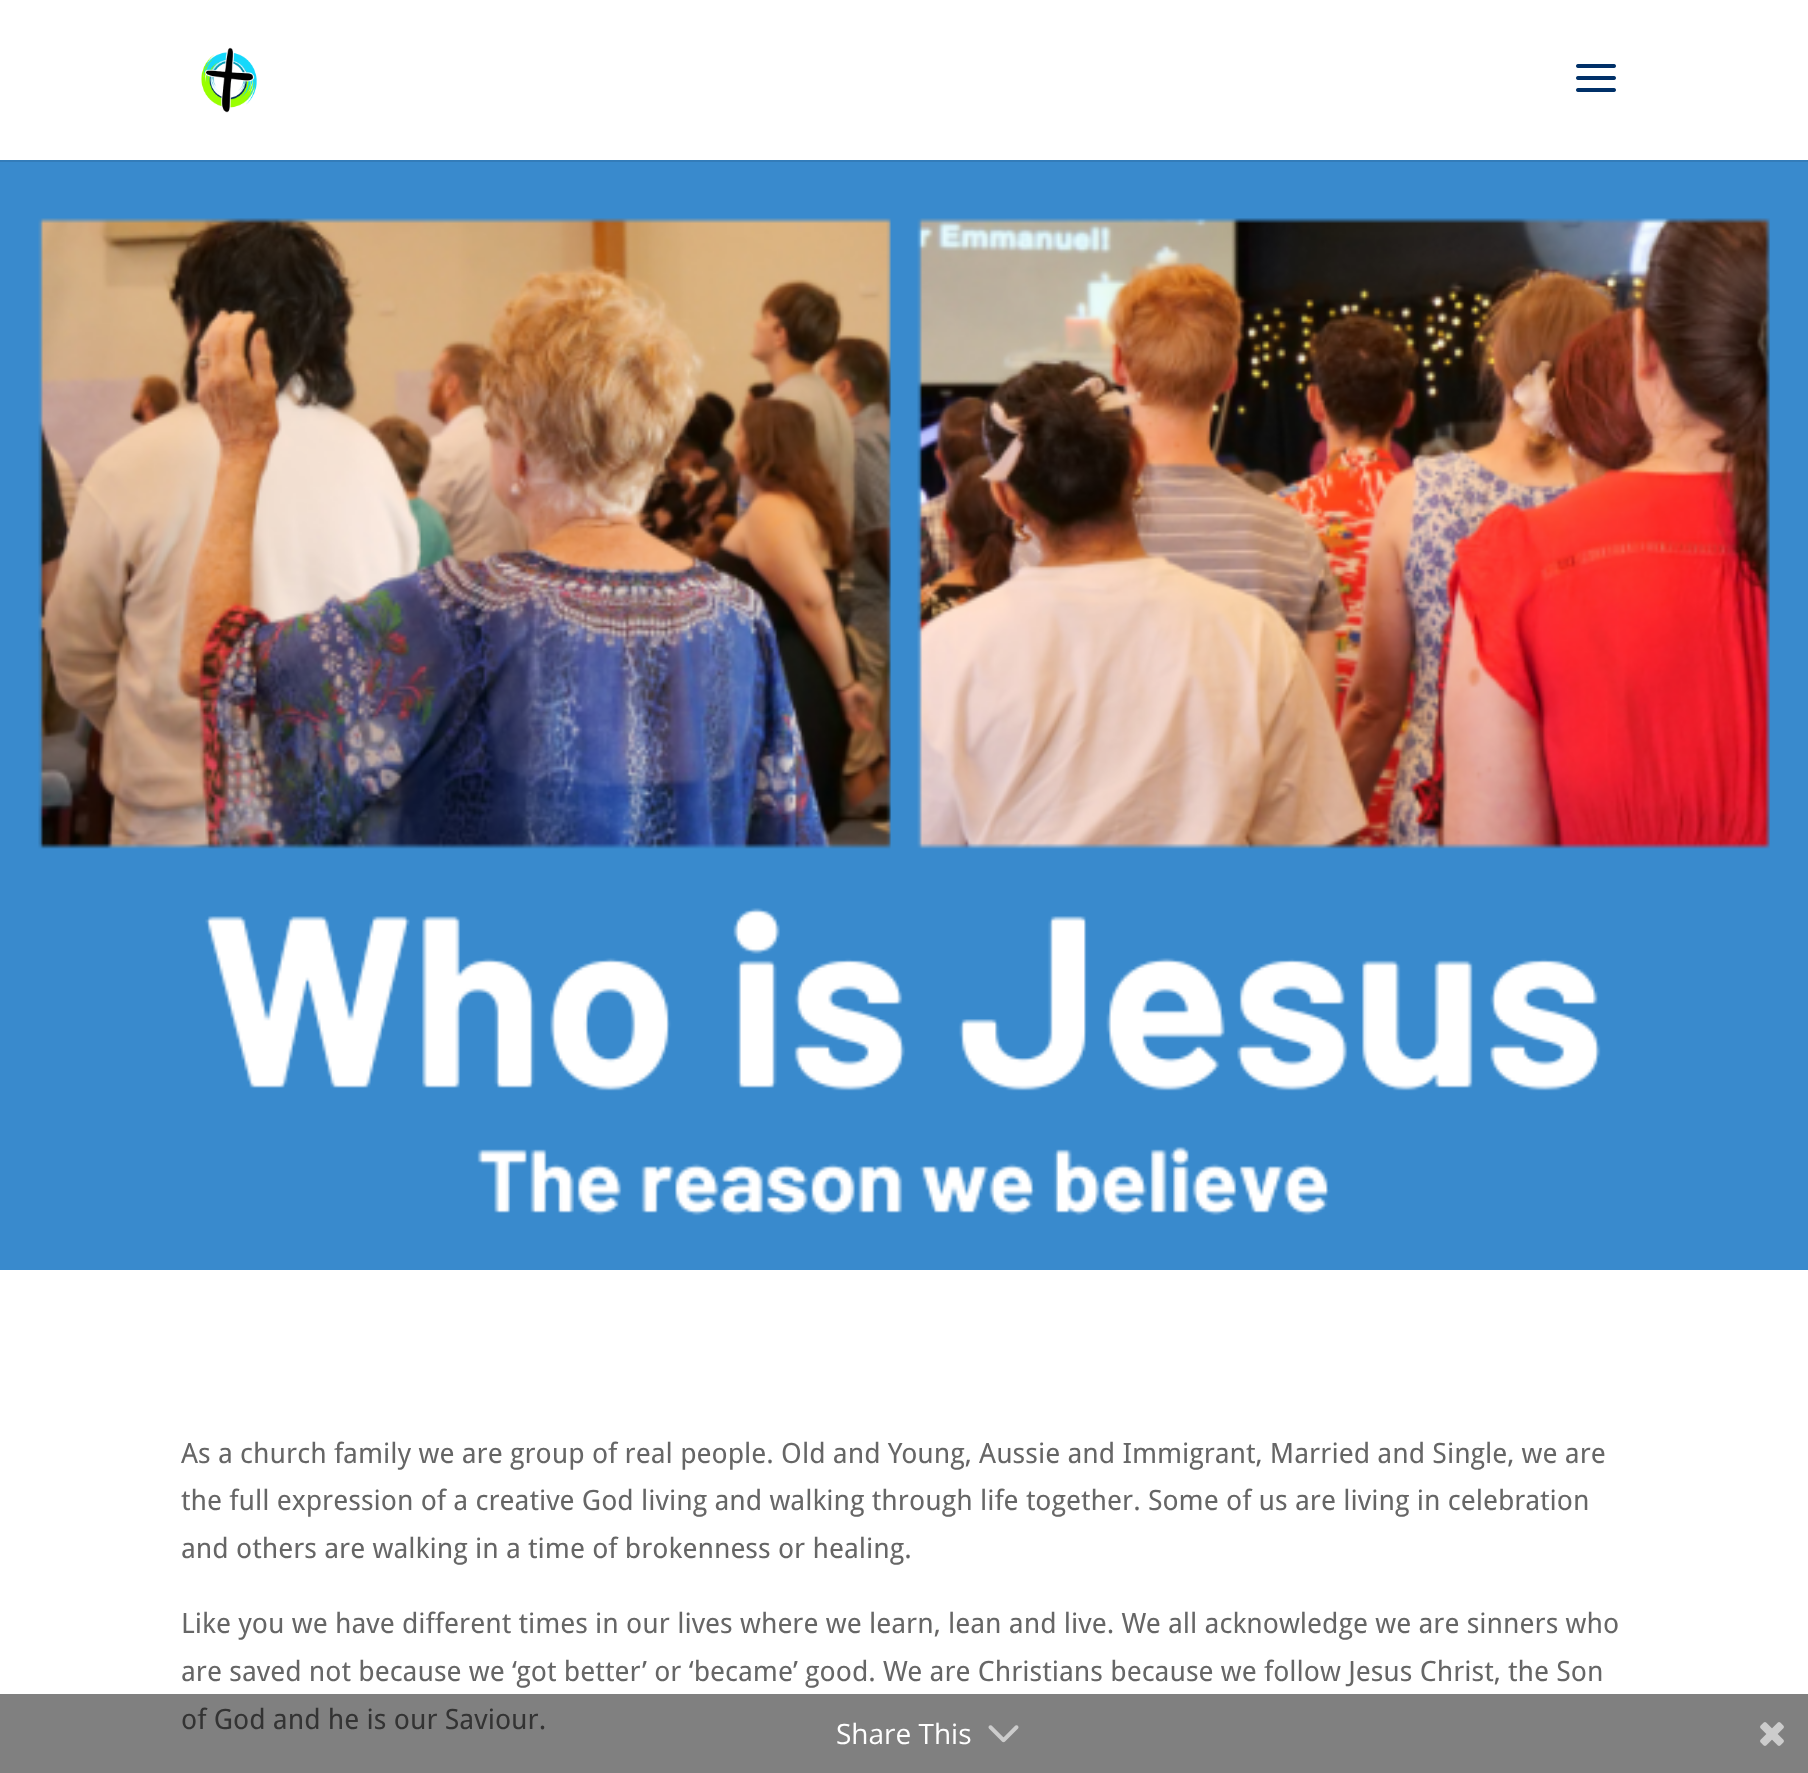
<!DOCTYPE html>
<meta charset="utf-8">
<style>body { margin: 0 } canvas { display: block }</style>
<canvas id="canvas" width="1808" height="1773"></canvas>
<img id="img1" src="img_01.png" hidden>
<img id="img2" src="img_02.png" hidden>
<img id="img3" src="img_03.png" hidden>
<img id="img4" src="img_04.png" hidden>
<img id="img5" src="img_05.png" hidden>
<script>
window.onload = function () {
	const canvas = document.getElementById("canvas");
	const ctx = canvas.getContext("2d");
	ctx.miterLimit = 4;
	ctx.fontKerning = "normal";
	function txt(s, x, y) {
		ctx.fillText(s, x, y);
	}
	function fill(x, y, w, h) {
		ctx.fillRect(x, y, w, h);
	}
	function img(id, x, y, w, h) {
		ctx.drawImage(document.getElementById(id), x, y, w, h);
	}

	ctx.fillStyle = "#FFFFFF";
	fill(0, 0, 1808, 1773);
	ctx.fillStyle = "#808080";
	fill(0, 1694, 1808, 79);
	ctx.fillStyle = "#337CB9";
	fill(0, 160, 1808, 2);
	img("img1", 201, 47, 56, 66);
	img("img2", 1576, 64, 40, 28);
	img("img3", 0, 162, 1808, 1108);
	img("img4", 988, 1725, 31, 18);
	img("img5", 1760, 1722, 24, 24);
	ctx.font = "28px Droid Sans";
	ctx.fillStyle = "#666666";
	txt("As a church family we are group of real people. Old and Young, Aussie and Immigrant, Married and Single, we are", 181, 1463);
	txt("the full expression of a creative God living and walking through life together. Some of us are living in celebration", 181, 1510);
	txt("and others are walking in a time of brokenness or healing.", 181, 1558);
	txt("Like you we have different times in our lives where we learn, lean and live. We all acknowledge we are sinners who", 181, 1633);
	txt("are saved not because we ‘got better’ or ‘became’ good. We are Christians because we follow Jesus Christ, the Son", 181, 1681);
	ctx.fillStyle = "#333333";
	txt("of God and he is our Saviour.", 181, 1729);
	ctx.font = "28px Open Sans";
	ctx.fillStyle = "#FFFFFF";
	txt("Share This", 836, 1744);
};
</script>
